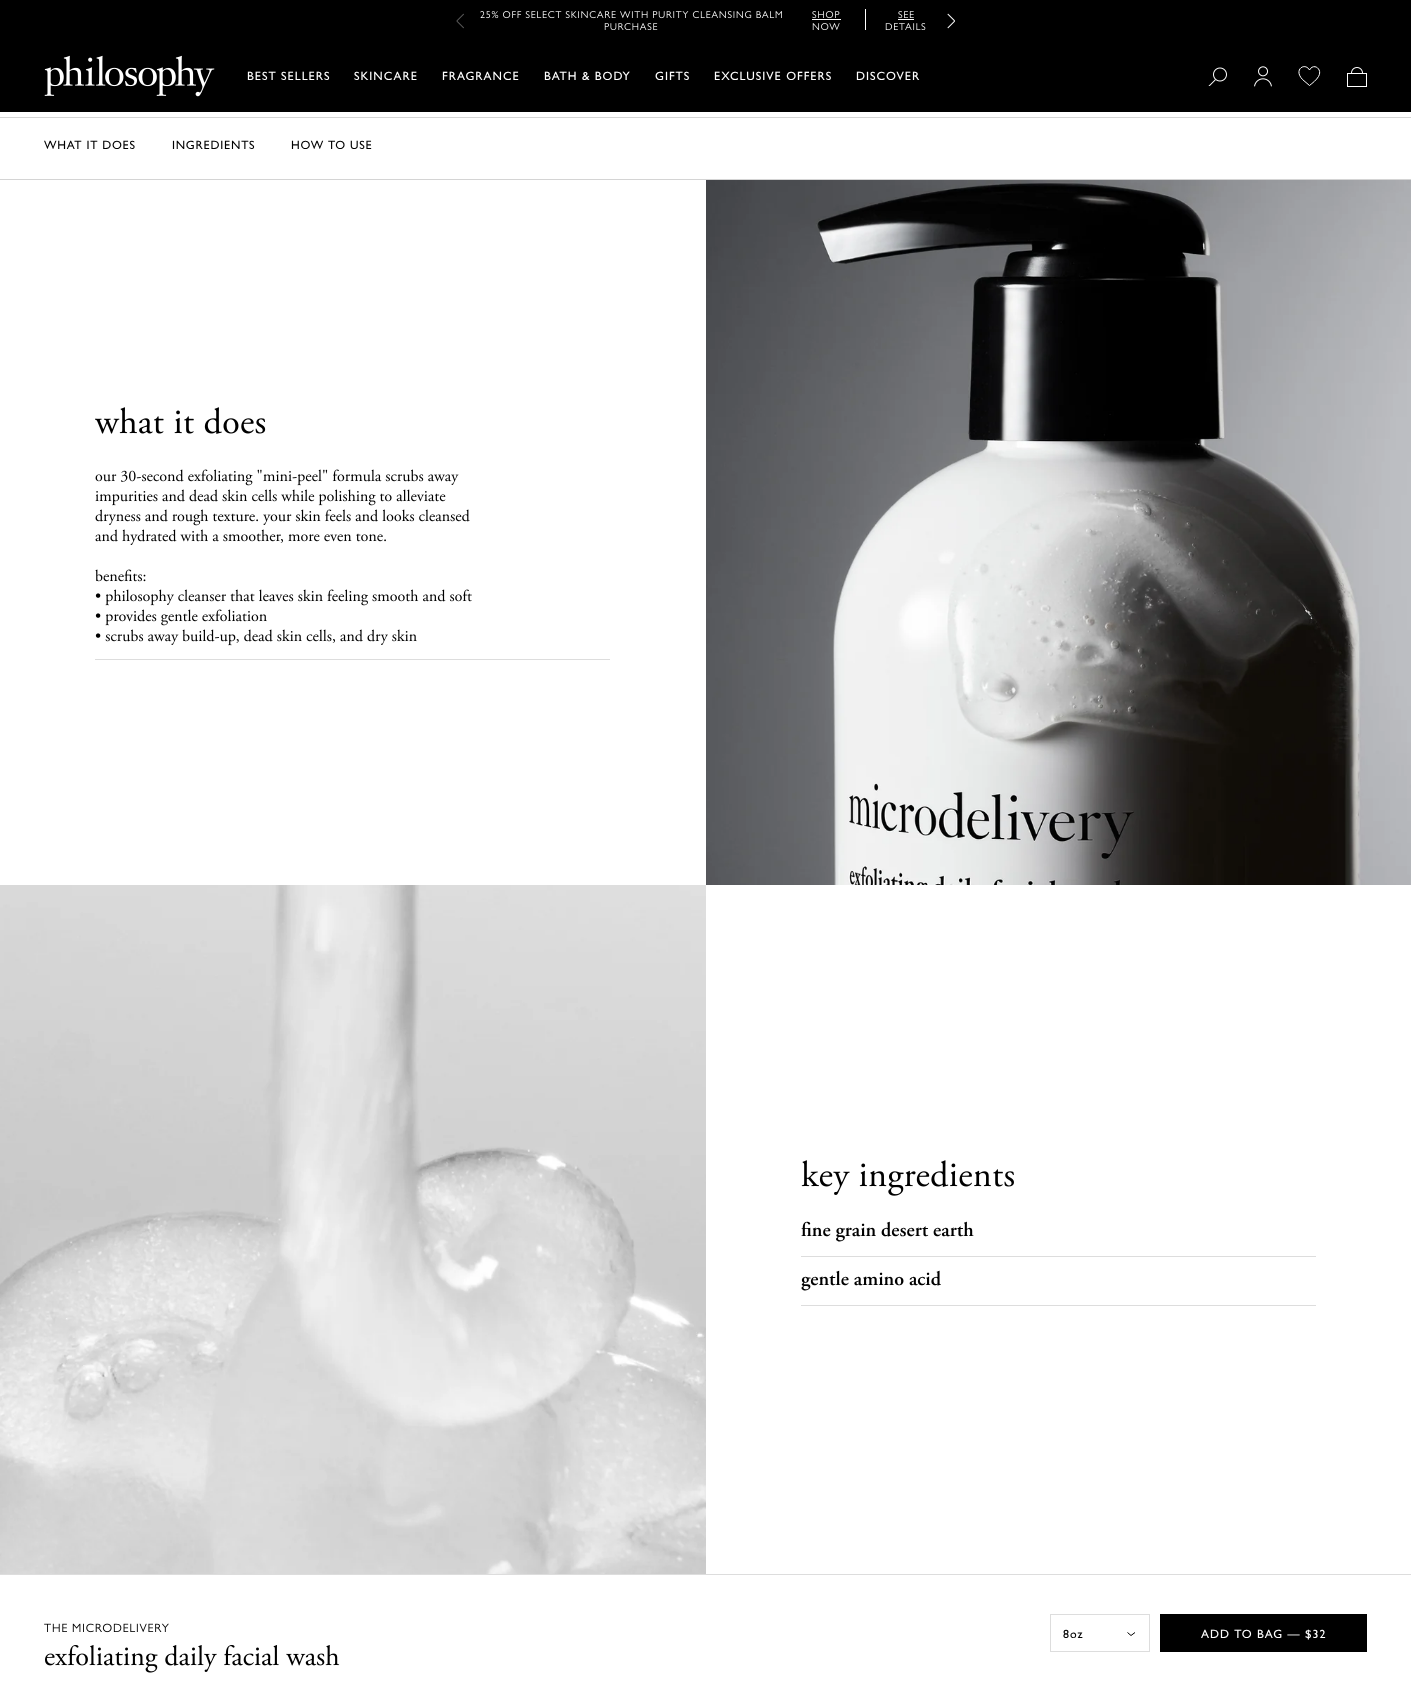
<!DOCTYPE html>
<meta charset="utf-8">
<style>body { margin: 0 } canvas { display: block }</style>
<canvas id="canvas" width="1411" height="1691"></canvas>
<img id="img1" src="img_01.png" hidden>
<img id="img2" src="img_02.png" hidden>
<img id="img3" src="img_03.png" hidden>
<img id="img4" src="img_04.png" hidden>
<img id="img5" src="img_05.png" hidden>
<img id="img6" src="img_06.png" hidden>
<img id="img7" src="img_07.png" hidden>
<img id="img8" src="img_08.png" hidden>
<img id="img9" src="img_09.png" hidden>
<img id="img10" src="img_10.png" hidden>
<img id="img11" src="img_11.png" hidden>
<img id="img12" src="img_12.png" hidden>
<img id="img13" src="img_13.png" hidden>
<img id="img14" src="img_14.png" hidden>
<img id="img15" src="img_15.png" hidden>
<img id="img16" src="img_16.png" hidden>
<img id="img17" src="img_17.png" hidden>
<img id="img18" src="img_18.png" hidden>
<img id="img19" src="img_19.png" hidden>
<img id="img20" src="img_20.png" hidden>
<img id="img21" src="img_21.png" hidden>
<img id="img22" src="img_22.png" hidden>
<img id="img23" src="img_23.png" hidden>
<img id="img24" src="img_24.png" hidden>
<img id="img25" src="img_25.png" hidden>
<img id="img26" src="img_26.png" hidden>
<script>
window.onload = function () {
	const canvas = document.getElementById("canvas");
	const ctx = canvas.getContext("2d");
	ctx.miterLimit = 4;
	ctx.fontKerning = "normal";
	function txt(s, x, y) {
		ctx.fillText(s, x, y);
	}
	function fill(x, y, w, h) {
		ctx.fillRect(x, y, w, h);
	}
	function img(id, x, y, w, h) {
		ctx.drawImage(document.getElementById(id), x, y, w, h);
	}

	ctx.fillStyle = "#FFFFFF";
	fill(0, 0, 1411, 1691);
	ctx.fillStyle = "#000000";
	fill(0, 0, 1411, 30);
	img("img1", 456, 13, 8, 16);
	img("img2", 480, 11, 302, 8);
	img("img3", 604, 23, 54, 7);
	ctx.fillStyle = "#FFFFFF";
	fill(865, 9, 1, 24);
	img("img4", 812, 11, 28, 8);
	fill(812, 19, 29, 1);
	img("img5", 812, 23, 28, 7);
	img("img6", 898, 11, 16, 8);
	fill(898, 19, 16, 1);
	img("img7", 885, 23, 41, 7);
	img("img8", 947, 13, 8, 16);
	ctx.fillStyle = "#000000";
	fill(0, 30, 1411, 82);
	img("img9", 44, 55, 171, 42);
	img("img10", 1208, 67, 19, 19);
	img("img11", 1254, 66, 18, 21);
	ctx.beginPath();
	ctx.moveTo(1302.5, 79.5);
	ctx.bezierCurveTo(1293, 69.5, 1305, 62, 1309.5, 70);
	ctx.bezierCurveTo(1313.5, 62.5, 1323, 69, 1318.5, 76.5);
	ctx.bezierCurveTo(1316.5, 80, 1312.5, 83, 1309.5, 85.5);
	ctx.closePath();
	ctx.strokeStyle = "#FFFFFF";
	ctx.stroke();
	img("img12", 1347, 67, 20, 20);
	ctx.fillStyle = "#D4D4D4";
	fill(0, 117, 1411, 1);
	fill(0, 179, 1411, 1);
	img("img13", 95, 407, 171, 27);
	ctx.fillStyle = "#DDDDDD";
	fill(95, 659, 515, 1);
	img("img14", 95, 469, 364, 17);
	img("img15", 95, 489, 351, 17);
	img("img16", 95, 509, 375, 17);
	img("img17", 95, 529, 291, 16);
	img("img18", 95, 569, 51, 13);
	img("img19", 95, 589, 377, 17);
	img("img20", 95, 609, 172, 17);
	img("img21", 95, 629, 322, 17);
	img("img22", 706, 180, 705, 705);
	img("img23", 0, 885, 706, 689);
	img("img24", 801, 1160, 213, 36);
	fill(801, 1256, 515, 1);
	fill(801, 1305, 515, 1);
	fill(0, 1574, 1411, 1);
	img("img25", 44, 1623, 125, 10);
	img("img26", 45, 1645, 295, 28);
	ctx.beginPath();
	ctx.moveTo(1135, 1632.5);
	ctx.lineTo(1131, 1635.5);
	ctx.lineTo(1127.5, 1632.5);
	ctx.strokeStyle = "#000000";
	ctx.lineJoin = "round";
	ctx.stroke();
	ctx.strokeStyle = "#DDDDDD";
	ctx.lineJoin = "miter";
	ctx.strokeRect(1050.5, 1614.5, 99, 37);
	ctx.fillStyle = "#000000";
	fill(1160, 1614, 207, 38);
	ctx.letterSpacing = "1px";
	ctx.font = "500 12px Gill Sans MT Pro";
	ctx.fillStyle = "#FFFFFF";
	txt("BEST SELLERS", 247, 80);
	txt("SKINCARE", 354, 80);
	txt("FRAGRANCE", 442, 80);
	txt("BATH & BODY", 544, 80);
	txt("GIFTS", 655, 80);
	txt("EXCLUSIVE OFFERS", 714, 80);
	txt("DISCOVER", 856, 80);
	ctx.letterSpacing = "0.75px";
	ctx.fillStyle = "#000000";
	txt("WHAT IT DOES", 44, 149);
	txt("INGREDIENTS", 172, 149);
	txt("HOW TO USE", 291, 149);
	ctx.letterSpacing = "0px";
	ctx.font = "600 20px Adobe Garamond";
	txt("fine grain desert earth", 801, 1236);
	txt("gentle amino acid", 801, 1285);
	ctx.letterSpacing = "1px";
	ctx.font = "500 12px Gill Sans MT Pro";
	txt("8oz", 1063, 1638);
	ctx.fillStyle = "#FFFFFF";
	txt("ADD TO BAG — $32", 1201, 1638);
};
</script>
